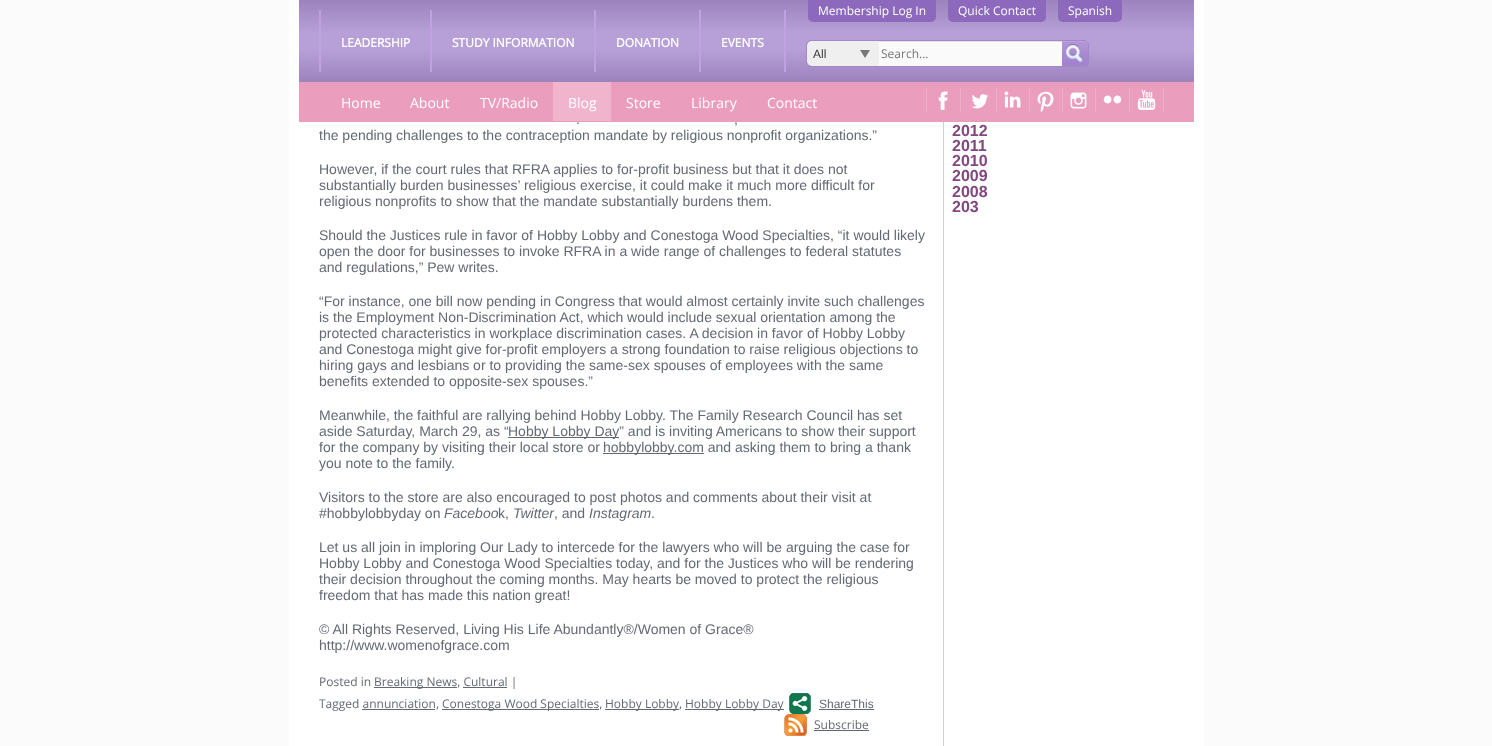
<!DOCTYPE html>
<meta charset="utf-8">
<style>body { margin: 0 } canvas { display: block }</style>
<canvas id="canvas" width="1492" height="746"></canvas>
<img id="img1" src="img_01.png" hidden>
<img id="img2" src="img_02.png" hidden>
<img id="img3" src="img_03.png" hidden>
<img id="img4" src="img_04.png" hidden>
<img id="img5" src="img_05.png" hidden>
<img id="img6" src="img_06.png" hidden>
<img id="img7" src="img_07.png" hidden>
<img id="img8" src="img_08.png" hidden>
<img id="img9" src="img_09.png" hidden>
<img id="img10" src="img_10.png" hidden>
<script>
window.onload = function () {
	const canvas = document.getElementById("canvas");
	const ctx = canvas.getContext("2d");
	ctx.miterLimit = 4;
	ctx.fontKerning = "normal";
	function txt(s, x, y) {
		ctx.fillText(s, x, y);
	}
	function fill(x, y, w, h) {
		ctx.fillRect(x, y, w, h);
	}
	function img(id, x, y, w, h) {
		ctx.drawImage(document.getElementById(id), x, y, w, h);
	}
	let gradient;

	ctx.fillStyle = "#FBFBFB";
	fill(0, 0, 1492, 746);
	ctx.fillStyle = "#FFFFFF";
	fill(289, 0, 915, 746);
	gradient = ctx.createLinearGradient(747, 0, 747, 82);
	gradient.addColorStop(0, "#9C83BD");
	gradient.addColorStop(0.4, "#B79FD8");
	gradient.addColorStop(0.6, "#B79FD8");
	gradient.addColorStop(1, "#9C83BD");
	ctx.fillStyle = gradient;
	fill(299, 0, 895, 82);
	ctx.fillStyle = "#BEA2E2";
	fill(319, 10, 2, 62);
	fill(430, 10, 2, 62);
	fill(594, 10, 2, 62);
	fill(784, 10, 2, 62);
	fill(699, 10, 2, 62);
	ctx.fillStyle = "#8C69BC";
	ctx.beginPath();
	ctx.roundRect(808, 0, 128, 22, [0, 0, 5, 5]);
	ctx.fill();
	ctx.beginPath();
	ctx.roundRect(948, 0, 98, 22, [0, 0, 5, 5]);
	ctx.fill();
	ctx.beginPath();
	ctx.roundRect(1058, 0, 64, 22, [0, 0, 5, 5]);
	ctx.fill();
	ctx.beginPath();
	ctx.roundRect(806.5, 40.5, 282, 26, 4.5);
	ctx.strokeStyle = "#A386CB";
	ctx.stroke();
	ctx.fillStyle = "#E1E1E1";
	fill(875, 41, 187, 1);
	ctx.fillStyle = "#EFEFEF";
	ctx.beginPath();
	ctx.roundRect(807, 41, 72, 25, [5, 0, 0, 5]);
	ctx.fill();
	ctx.fillStyle = "#787878";
	ctx.beginPath();
	ctx.moveTo(860, 50);
	ctx.lineTo(870, 50);
	ctx.lineTo(865, 58);
	ctx.closePath();
	ctx.fill();
	ctx.fillStyle = "#FAFAFA";
	fill(879, 42, 183, 24);
	img("img1", 1062, 41, 26, 25);
	ctx.fillStyle = "#EB9DBD";
	fill(299, 82, 895, 40);
	ctx.fillStyle = "#F0B5CD";
	fill(553, 82, 58, 39);
	img("img2", 926, 88, 35, 25);
	img("img3", 972, 88, 25, 25);
	img("img4", 1004, 88, 26, 25);
	img("img5", 1037, 88, 26, 25);
	img("img6", 1070, 88, 26, 25);
	img("img7", 1103, 88, 27, 25);
	img("img8", 1137, 88, 27, 25);
	ctx.fillStyle = "#CDD0DA";
	fill(943, 122, 1, 624);
	ctx.fillStyle = "#636974";
	fill(508, 437, 111, 1);
	fill(603, 453, 101, 1);
	fill(374, 687, 83, 1);
	fill(463, 687, 44, 1);
	fill(442, 709, 157, 1);
	fill(605, 709, 74, 1);
	fill(685, 709, 99, 1);
	fill(362, 709, 73, 1);
	img("img9", 789, 693, 22, 21);
	fill(819, 709, 55, 1);
	img("img10", 784, 714, 23, 22);
	fill(814, 730, 55, 1);
	ctx.font = "bold 12px Open Sans";
	ctx.fillStyle = "#FFFFFF";
	txt("LEADERSHIP", 341, 47);
	txt("STUDY INFORMATION", 452, 47);
	txt("DONATION", 616, 47);
	txt("EVENTS", 721, 47);
	ctx.font = "12px Open Sans";
	txt("Membership Log In", 818, 15);
	txt("Quick Contact", 958, 15);
	txt("Spanish", 1068, 15);
	ctx.font = "12px Liberation Sans";
	ctx.fillStyle = "#373737";
	txt("All", 813, 58);
	ctx.font = "12px Open Sans";
	ctx.fillStyle = "#757575";
	txt("Search...", 881, 58);
	ctx.font = "14px Open Sans";
	ctx.fillStyle = "#FFFFFF";
	txt("Home", 341, 108);
	txt("About", 410, 108);
	txt("TV/Radio", 480, 108);
	txt("Blog", 568, 108);
	txt("Store", 626, 108);
	txt("Library", 691, 108);
	txt("Contact", 767, 108);
	ctx.font = "14px Liberation Sans";
	ctx.fillStyle = "#636974";
	txt(".", 576, 124);
	txt(",", 734, 124);
	txt("the pending challenges to the contraception mandate by religious nonprofit organizations.”", 319, 140);
	txt("However, if the court rules that RFRA applies to for-profit business but that it does not", 319, 174);
	txt("substantially burden businesses’ religious exercise, it could make it much more difficult for", 319, 190);
	txt("religious nonprofits to show that the mandate substantially burdens them.", 319, 206);
	txt("Should the Justices rule in favor of Hobby Lobby and Conestoga Wood Specialties, “it would likely", 319, 240);
	txt("open the door for businesses to invoke RFRA in a wide range of challenges to federal statutes", 319, 256);
	txt("and regulations,” Pew writes.", 319, 272);
	txt("“For instance, one bill now pending in Congress that would almost certainly invite such challenges", 319, 306);
	txt("is the Employment Non-Discrimination Act, which would include sexual orientation among the", 319, 322);
	txt("protected characteristics in workplace discrimination cases. A decision in favor of Hobby Lobby", 319, 338);
	txt("and Conestoga might give for-profit employers a strong foundation to raise religious objections to", 319, 354);
	txt("hiring gays and lesbians or to providing the same-sex spouses of employees with the same", 319, 370);
	txt("benefits extended to opposite-sex spouses.”", 319, 386);
	txt("Meanwhile, the faithful are rallying behind Hobby Lobby. The Family Research Council has set", 319, 420);
	txt("aside Saturday, March 29, as “", 319, 436);
	txt("Hobby Lobby Day” and is inviting Americans to show their support", 508, 436);
	txt("for the company by visiting their local store or", 319, 452);
	txt("hobbylobby.com and asking them to bring a thank", 603, 452);
	txt("you note to the family.", 319, 468);
	txt("Visitors to the store are also encouraged to post photos and comments about their visit at", 319, 502);
	txt("#hobbylobbyday on", 319, 518);
	ctx.font = "italic 14px Liberation Sans";
	txt("Faceboo", 444, 518);
	ctx.font = "14px Liberation Sans";
	txt("k,", 498, 518);
	ctx.font = "italic 14px Liberation Sans";
	txt("Twitter", 513, 518);
	ctx.font = "14px Liberation Sans";
	txt(", and", 554, 518);
	ctx.font = "italic 14px Liberation Sans";
	txt("Instagram", 589, 518);
	ctx.font = "14px Liberation Sans";
	txt(".", 651, 518);
	txt("Let us all join in imploring Our Lady to intercede for the lawyers who will be arguing the case for", 319, 552);
	txt("Hobby Lobby and Conestoga Wood Specialties today, and for the Justices who will be rendering", 319, 568);
	txt("their decision throughout the coming months. May hearts be moved to protect the religious", 319, 584);
	txt("freedom that has made this nation great!", 319, 600);
	txt("© All Rights Reserved, Living His Life Abundantly®/Women of Grace®", 319, 634);
	txt("http://www.womenofgrace.com", 319, 650);
	ctx.font = "12px Open Sans";
	txt("Posted in", 319, 686);
	txt("Breaking News, Cultural |", 374, 686);
	txt("Tagged annunciation,", 319, 708);
	txt("Conestoga Wood Specialties,", 442, 708);
	txt("Hobby Lobby,", 605, 708);
	txt("Hobby Lobby Day", 685, 708);
	ctx.font = "12px Liberation Sans";
	txt("ShareThis", 819, 708);
	ctx.font = "12px Open Sans";
	txt("Subscribe", 814, 729);
	ctx.font = "bold 16px Liberation Sans";
	ctx.fillStyle = "#83477F";
	txt("2012", 952, 136);
	txt("2011", 952, 151);
	txt("2010", 952, 166);
	txt("2009", 952, 181);
	txt("2008", 952, 197);
	txt("203", 952, 212);
};
</script>
